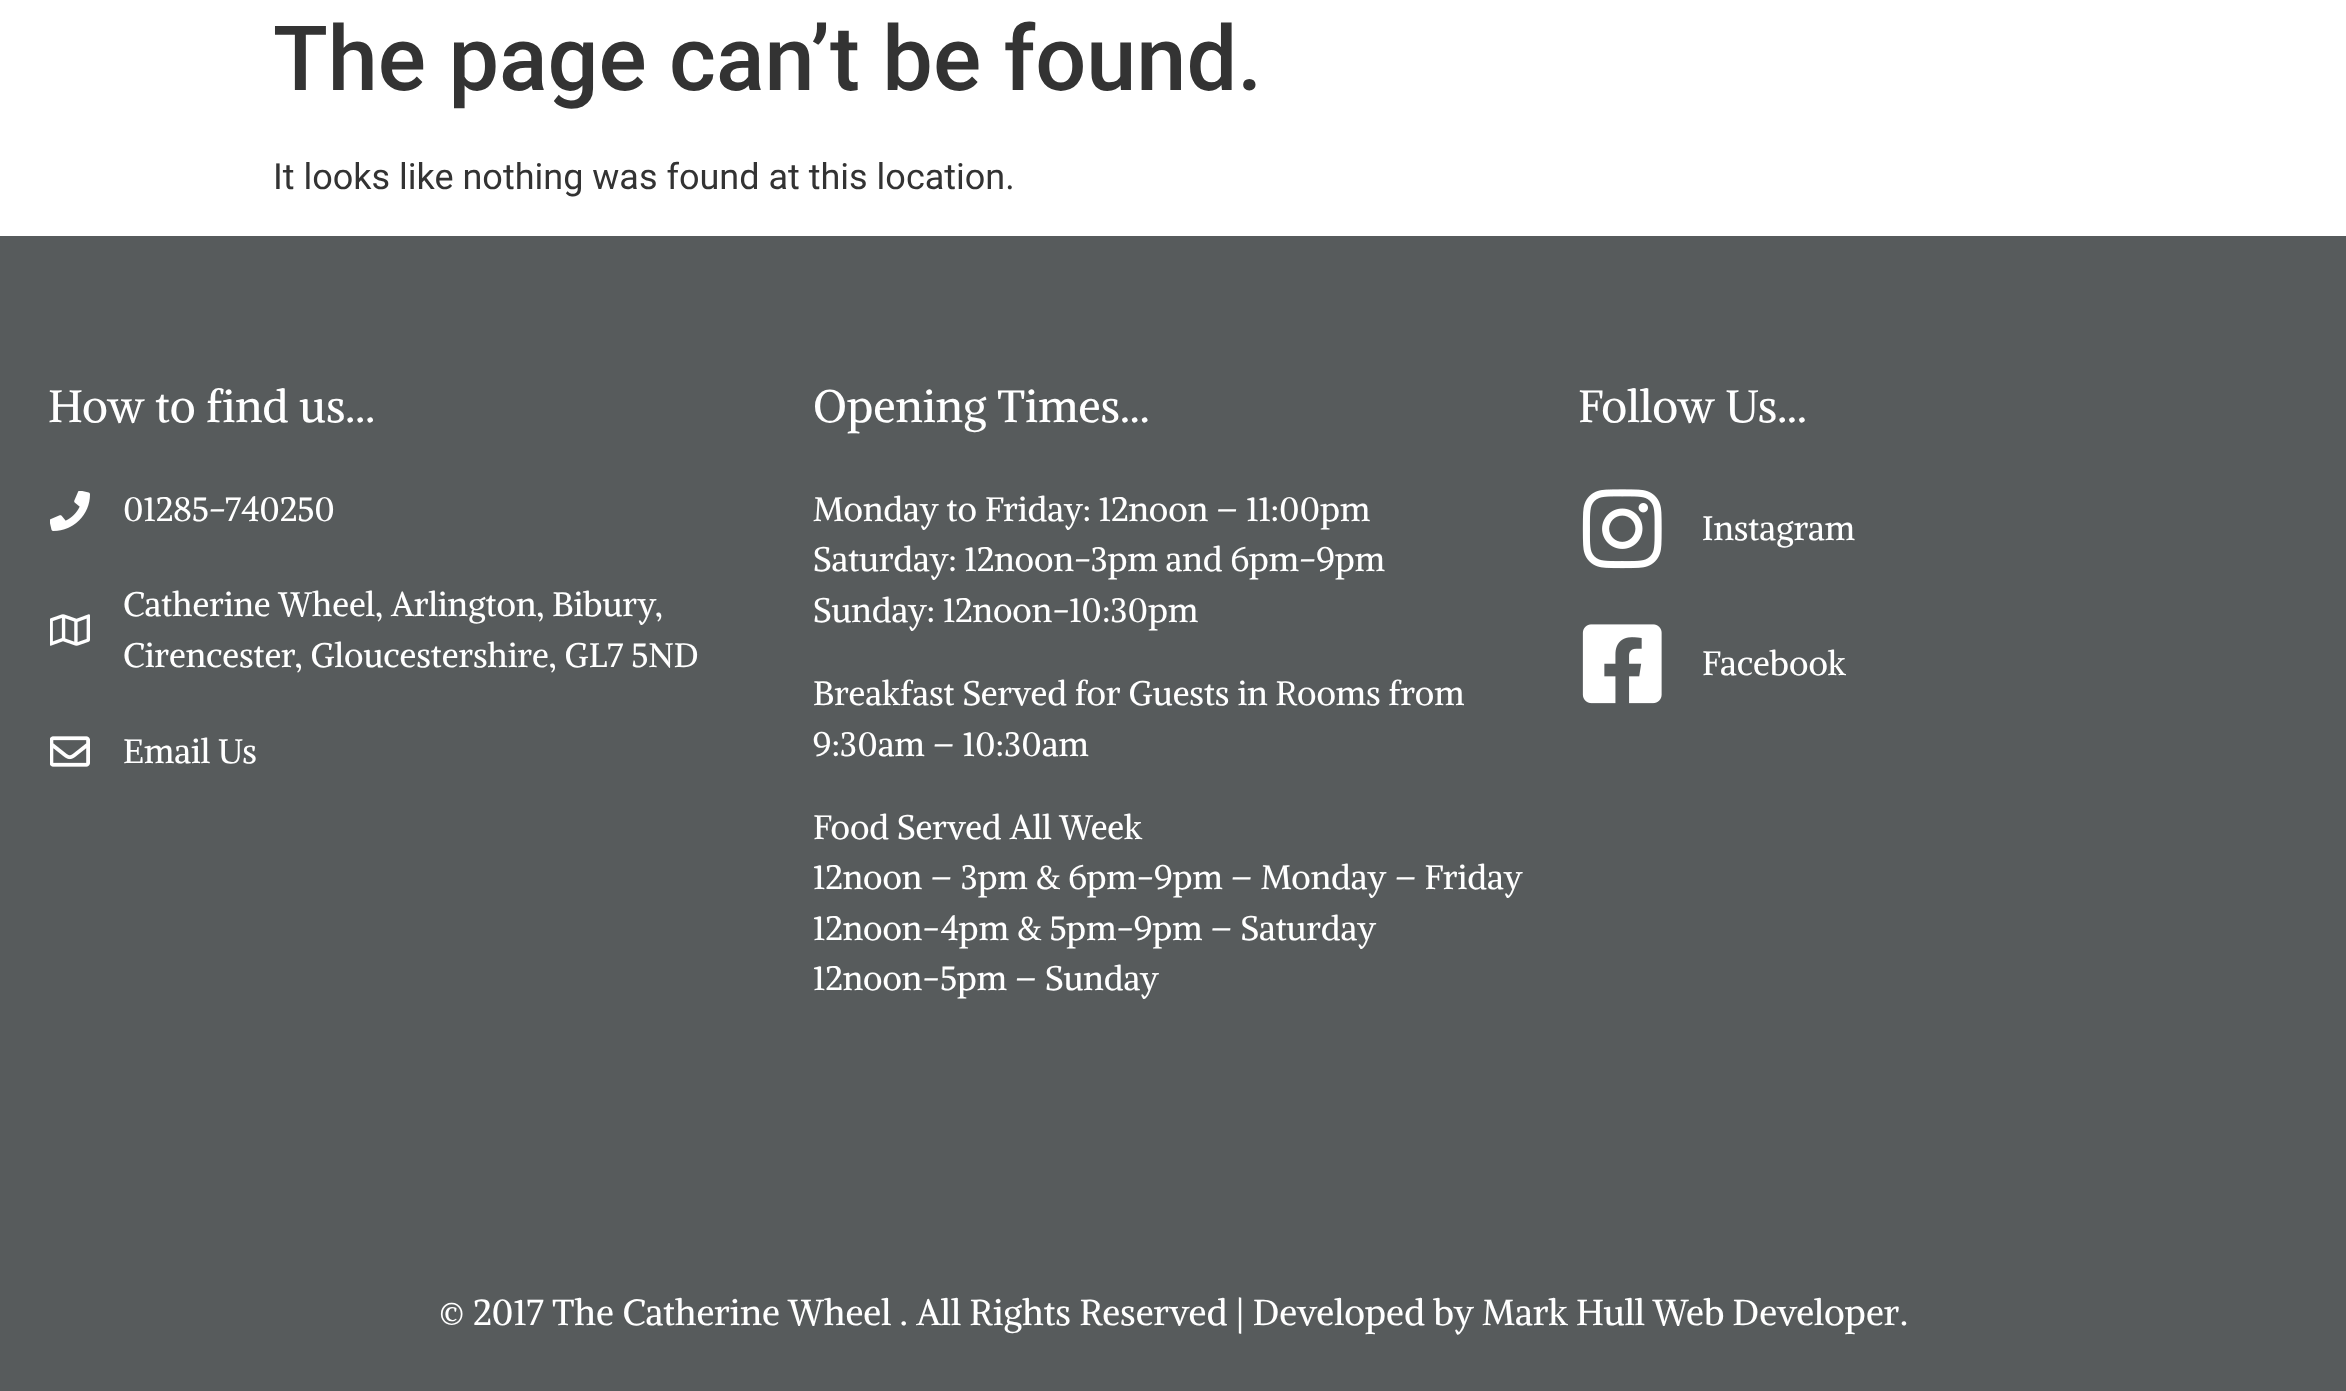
<!DOCTYPE html>
<meta charset="utf-8">
<style>body { margin: 0 } canvas { display: block }</style>
<canvas id="canvas" width="2346" height="1391"></canvas>
<img id="img1" src="img_01.png" hidden>
<img id="img2" src="img_02.png" hidden>
<img id="img3" src="img_03.png" hidden>
<img id="img4" src="img_04.png" hidden>
<img id="img5" src="img_05.png" hidden>
<script>
window.onload = function () {
	const canvas = document.getElementById("canvas");
	const ctx = canvas.getContext("2d");
	ctx.miterLimit = 4;
	ctx.fontKerning = "normal";
	function txt(s, x, y) {
		ctx.fillText(s, x, y);
	}
	function fill(x, y, w, h) {
		ctx.fillRect(x, y, w, h);
	}
	function img(id, x, y, w, h) {
		ctx.drawImage(document.getElementById(id), x, y, w, h);
	}

	ctx.fillStyle = "#FFFFFF";
	fill(0, 0, 2346, 1391);
	ctx.fillStyle = "#575B5C";
	fill(0, 236, 2346, 1155);
	img("img1", 50, 491, 40, 40);
	img("img2", 50, 614, 40, 32);
	img("img3", 50, 736, 40, 31);
	img("img4", 1582, 489, 80, 80);
	img("img5", 1582, 624, 80, 80);
	ctx.font = "500 90px Roboto";
	ctx.fillStyle = "#333333";
	txt("The page can’t be found.", 273, 90);
	ctx.font = "36px Roboto";
	txt("It looks like nothing was found at this location.", 273, 189);
	ctx.font = "45px Alike";
	ctx.fillStyle = "#FFFFFF";
	txt("How to find us...", 48, 422);
	ctx.font = "33.75px Alike";
	txt("01285-740250", 123, 521);
	txt("Catherine Wheel, Arlington, Bibury,", 123, 616);
	txt("Cirencester, Gloucestershire, GL7 5ND", 123, 667);
	txt("Email Us", 123, 763);
	ctx.font = "45px Alike";
	txt("Opening Times...", 813, 422);
	ctx.font = "33.75px Alike";
	txt("Monday to Friday: 12noon – 11:00pm", 813, 521);
	txt("Saturday: 12noon-3pm and 6pm-9pm", 813, 571);
	txt("Sunday: 12noon-10:30pm", 813, 622);
	txt("Breakfast Served for Guests in Rooms from", 813, 705);
	txt("9:30am – 10:30am", 813, 756);
	txt("Food Served All Week", 813, 839);
	txt("12noon – 3pm & 6pm-9pm – Monday – Friday", 813, 889);
	txt("12noon-4pm & 5pm-9pm – Saturday", 813, 940);
	txt("12noon-5pm – Sunday", 813, 990);
	ctx.font = "45px Alike";
	txt("Follow Us...", 1578, 422);
	ctx.font = "33.75px Alike";
	txt("Instagram", 1702, 540);
	txt("Facebook", 1702, 675);
	ctx.font = "36px Alike";
	txt("© 2017 The Catherine Wheel . All Rights Reserved | Developed by", 439, 1325);
	ctx.wordSpacing = "-0.5px";
	txt("Mark Hull Web Developer", 1482, 1325);
	ctx.wordSpacing = "0px";
	txt(".", 1900, 1325);
};
</script>
